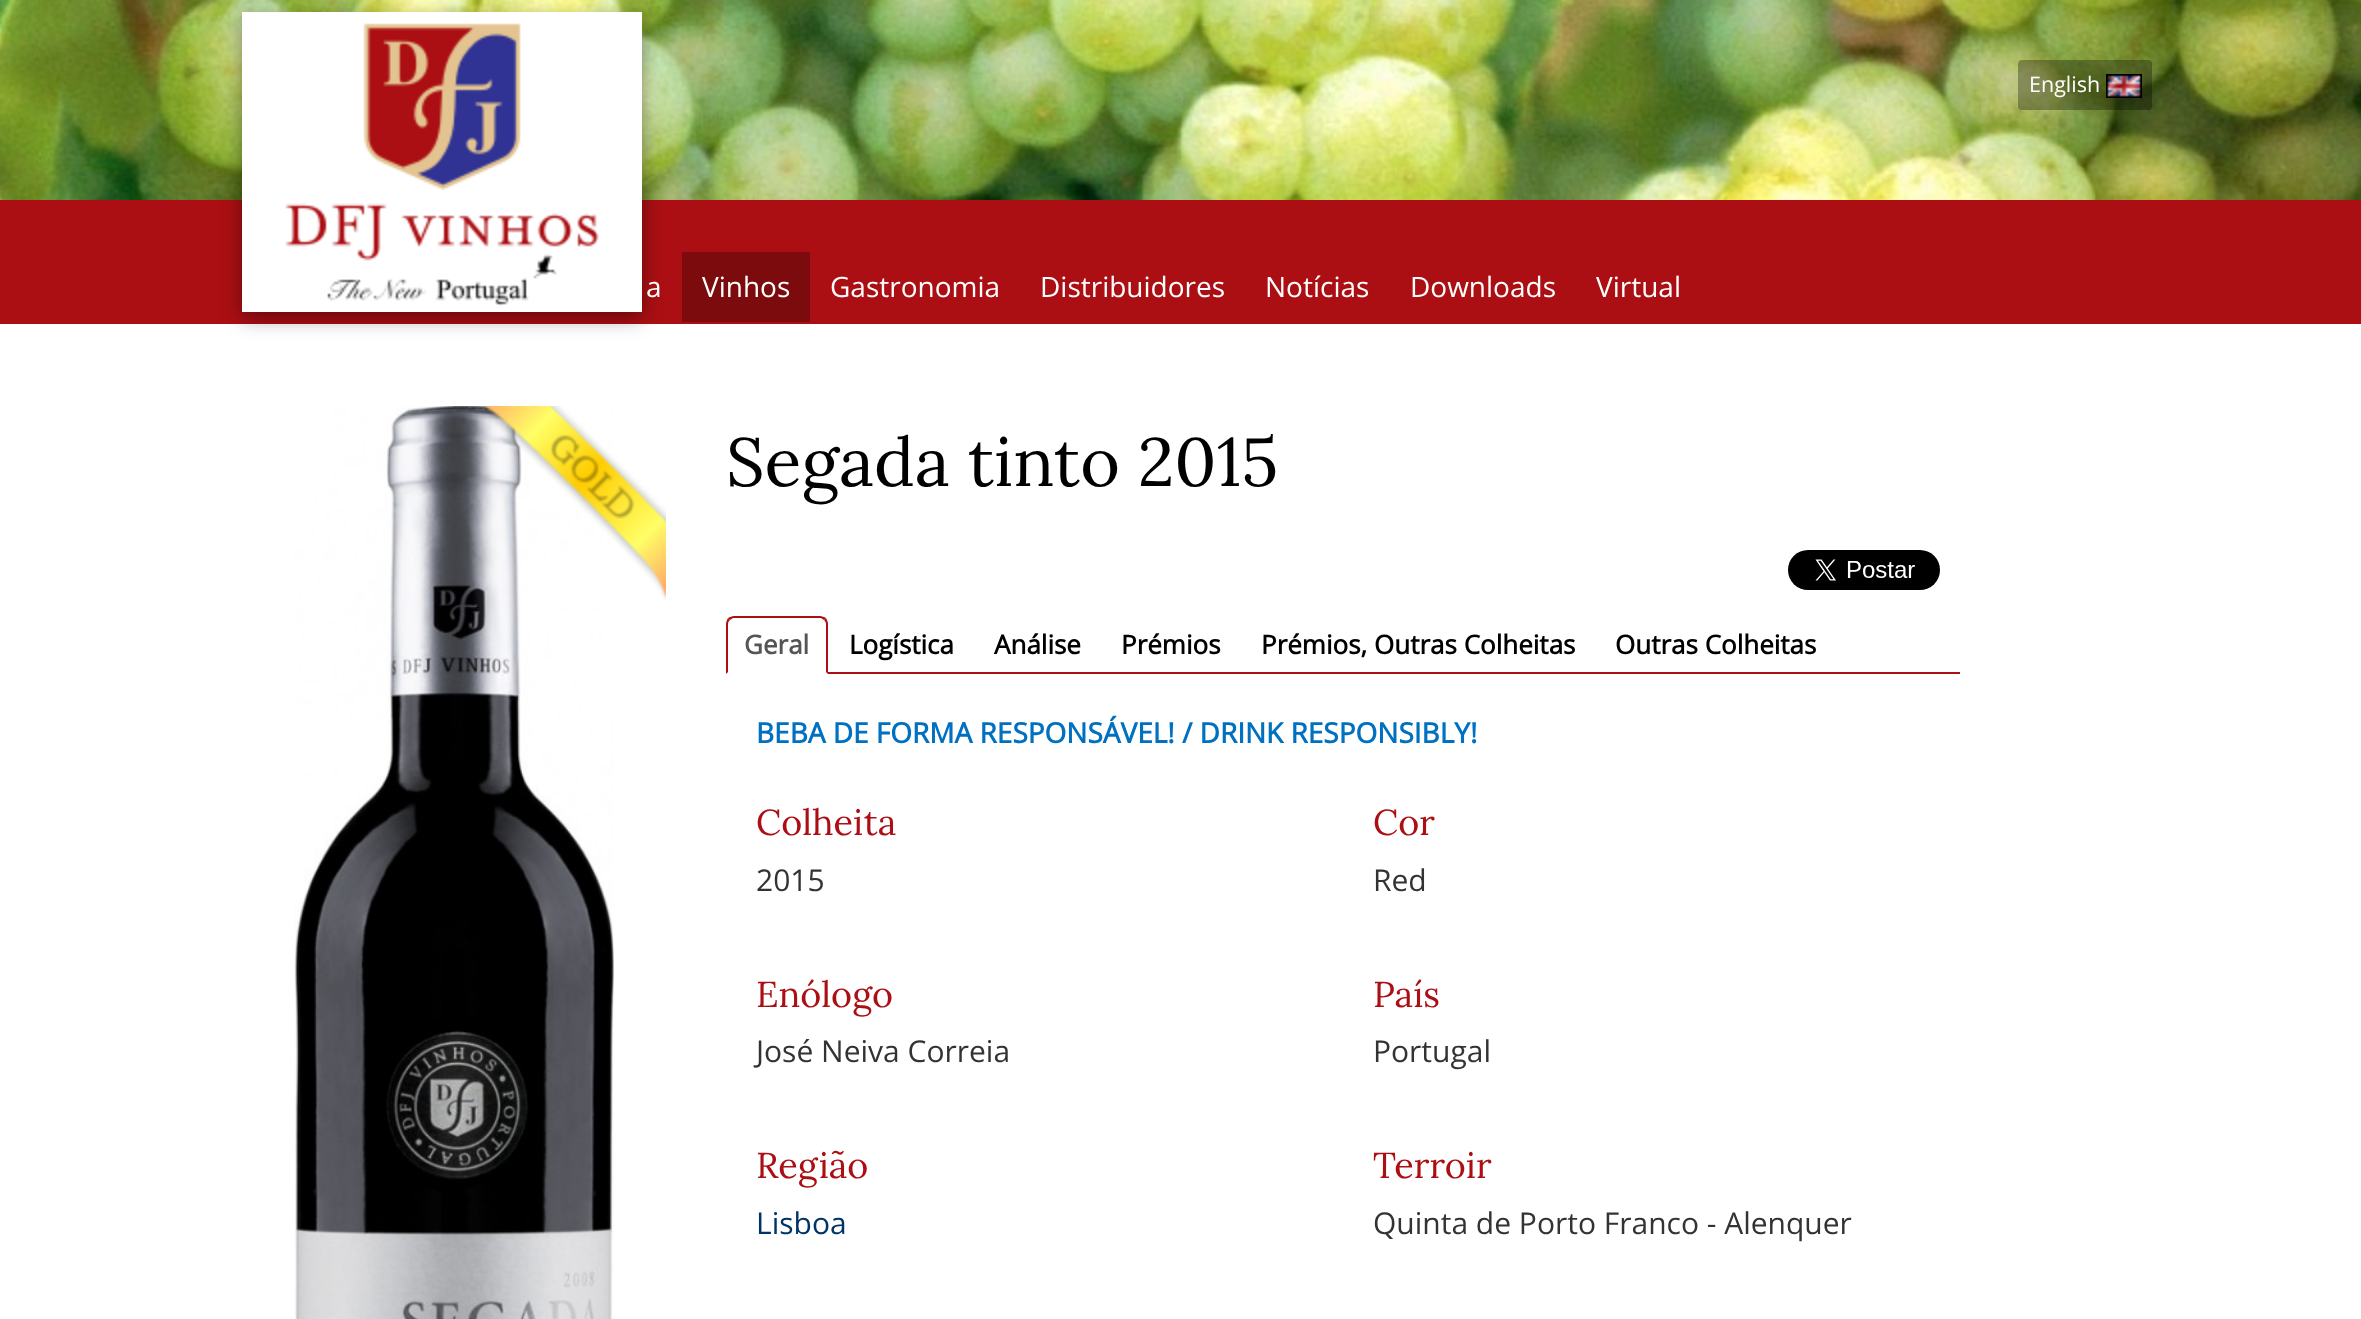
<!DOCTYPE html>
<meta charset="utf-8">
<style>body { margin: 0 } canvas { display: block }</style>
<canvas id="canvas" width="2361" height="1319"></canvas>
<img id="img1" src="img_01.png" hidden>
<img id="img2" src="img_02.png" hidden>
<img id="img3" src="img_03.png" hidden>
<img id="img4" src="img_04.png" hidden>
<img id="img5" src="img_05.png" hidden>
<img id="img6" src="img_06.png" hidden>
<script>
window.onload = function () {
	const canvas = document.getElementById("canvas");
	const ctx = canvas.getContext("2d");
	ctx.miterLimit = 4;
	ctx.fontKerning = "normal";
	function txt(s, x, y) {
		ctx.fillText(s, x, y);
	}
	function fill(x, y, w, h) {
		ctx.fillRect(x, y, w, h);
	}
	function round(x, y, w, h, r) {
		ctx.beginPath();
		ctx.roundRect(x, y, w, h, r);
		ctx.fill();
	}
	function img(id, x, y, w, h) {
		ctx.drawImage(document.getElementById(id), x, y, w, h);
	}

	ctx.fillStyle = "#FFFFFF";
	fill(0, 0, 2361, 1319);
	img("img1", 0, 0, 2361, 200);
	ctx.fillStyle = "rgba(0, 0, 0, 0.3)";
	round(2018, 60, 134, 50, 4);
	img("img2", 2106, 74, 36, 24);
	ctx.fillStyle = "#AB0F13";
	fill(0, 200, 2361, 124);
	ctx.fillStyle = "rgba(0, 0, 0, 0.4)";
	ctx.filter = "blur(10px)";
	ctx.beginPath();
	ctx.rect(242, 18, 400, 300);
	ctx.fill();
	ctx.filter = "none";
	img("img3", 242, 12, 400, 300);
	ctx.fillStyle = "#7C0B0E";
	fill(682, 252, 128, 70);
	img("img4", 294, 406, 320, 913);
	img("img5", 466, 406, 200, 194);
	img("img6", 1788, 550, 152, 40);
	ctx.fillStyle = "#AB0F13";
	fill(828, 672, 1132, 2);
	ctx.beginPath();
	ctx.moveTo(734, 616);
	ctx.bezierCurveTo(732, 616, 730, 617, 728, 618);
	ctx.lineTo(730, 620);
	ctx.lineTo(733, 618);
	ctx.lineTo(821, 618);
	ctx.lineTo(824, 620);
	ctx.lineTo(826, 618);
	ctx.bezierCurveTo(824, 617, 822, 616, 820, 616);
	ctx.closePath();
	ctx.fill();
	ctx.beginPath();
	ctx.moveTo(828, 674);
	ctx.lineTo(828, 624);
	ctx.bezierCurveTo(828, 622, 827, 620, 826, 618);
	ctx.lineTo(824, 620);
	ctx.bezierCurveTo(825, 621, 826, 622, 826, 624);
	ctx.lineTo(826, 672);
	ctx.closePath();
	ctx.fill();
	ctx.beginPath();
	ctx.moveTo(726, 674);
	ctx.lineTo(728, 672);
	ctx.lineTo(728, 624);
	ctx.bezierCurveTo(728, 622, 729, 621, 730, 620);
	ctx.lineTo(728, 618);
	ctx.bezierCurveTo(727, 620, 726, 622, 726, 624);
	ctx.closePath();
	ctx.fill();
	ctx.font = "21.5px Open Sans";
	ctx.fillStyle = "#FFFFFF";
	txt("English", 2029, 92);
	ctx.font = "28px Open Sans";
	txt("a", 646, 297);
	txt("Vinhos", 702, 297);
	txt("Gastronomia", 830, 297);
	txt("Distribuidores", 1040, 297);
	txt("Notícias", 1265, 297);
	txt("Downloads", 1410, 297);
	txt("Virtual", 1596, 297);
	ctx.font = "68px Lora";
	ctx.fillStyle = "#000000";
	txt("Segada tinto 2015", 726, 486);
	ctx.font = "bold 26px Open Sans";
	ctx.fillStyle = "#555555";
	txt("Geral", 744, 654);
	ctx.fillStyle = "#000000";
	txt("Logística", 849, 654);
	txt("Análise", 994, 654);
	txt("Prémios", 1121, 654);
	txt("Prémios, Outras Colheitas", 1261, 654);
	txt("Outras Colheitas", 1615, 654);
	ctx.font = "bold 28px Open Sans";
	ctx.fillStyle = "#0070C0";
	txt("BEBA DE FORMA RESPONSÁVEL! / DRINK RESPONSIBLY!", 756, 743);
	ctx.font = "36px Lora";
	ctx.fillStyle = "#AB0F13";
	txt("Colheita", 756, 835);
	ctx.font = "30px Open Sans";
	ctx.fillStyle = "#333333";
	txt("2015", 756, 891);
	ctx.font = "36px Lora";
	ctx.fillStyle = "#AB0F13";
	txt("Cor", 1373, 835);
	ctx.font = "30px Open Sans";
	ctx.fillStyle = "#333333";
	txt("Red", 1373, 891);
	ctx.font = "36px Lora";
	ctx.fillStyle = "#AB0F13";
	txt("Enólogo", 756, 1007);
	ctx.font = "30px Open Sans";
	ctx.fillStyle = "#333333";
	txt("José Neiva Correia", 756, 1062);
	ctx.font = "36px Lora";
	ctx.fillStyle = "#AB0F13";
	txt("País", 1373, 1007);
	ctx.font = "30px Open Sans";
	ctx.fillStyle = "#333333";
	txt("Portugal", 1373, 1062);
	ctx.font = "36px Lora";
	ctx.fillStyle = "#AB0F13";
	txt("Região", 756, 1178);
	ctx.font = "30px Open Sans";
	ctx.fillStyle = "#003366";
	txt("Lisboa", 756, 1234);
	ctx.font = "36px Lora";
	ctx.fillStyle = "#AB0F13";
	txt("Terroir", 1373, 1178);
	ctx.font = "30px Open Sans";
	ctx.fillStyle = "#333333";
	txt("Quinta de Porto Franco - Alenquer", 1373, 1234);
};
</script>
